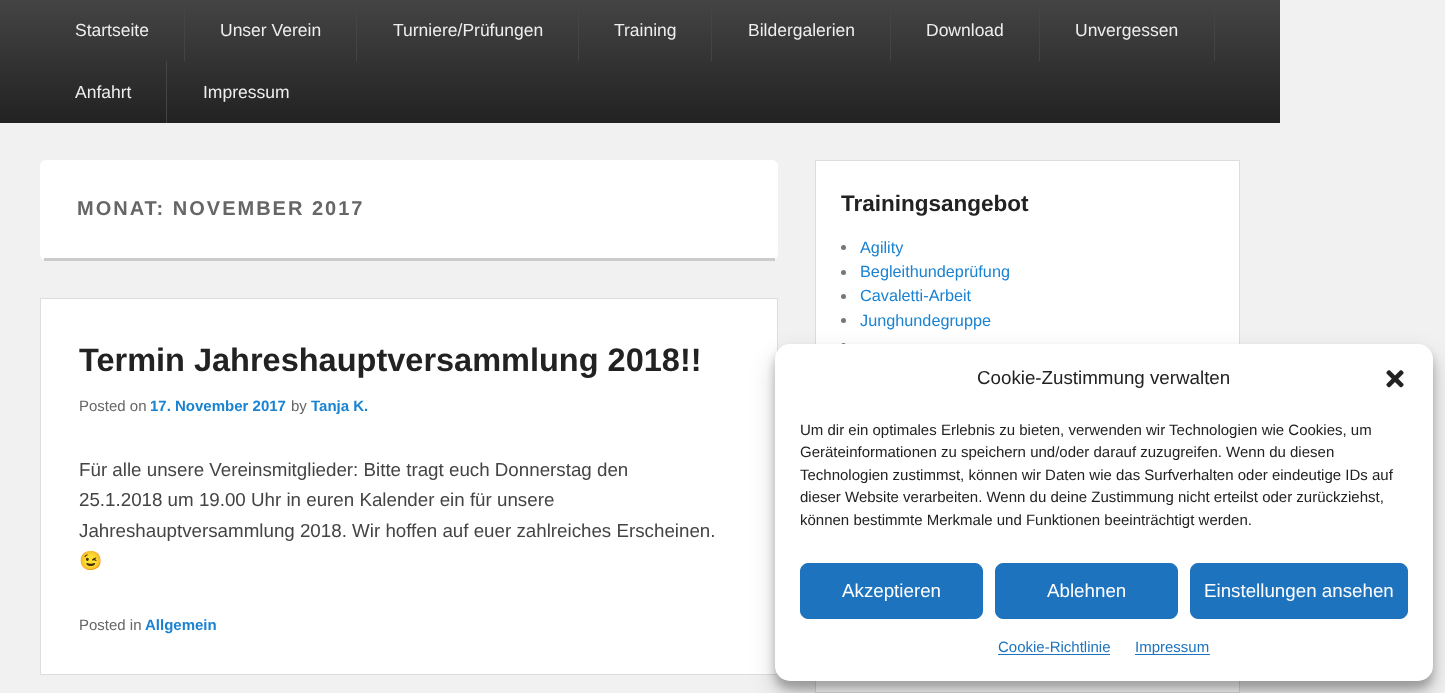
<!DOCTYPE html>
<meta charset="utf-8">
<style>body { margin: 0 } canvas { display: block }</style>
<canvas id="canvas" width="1445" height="693"></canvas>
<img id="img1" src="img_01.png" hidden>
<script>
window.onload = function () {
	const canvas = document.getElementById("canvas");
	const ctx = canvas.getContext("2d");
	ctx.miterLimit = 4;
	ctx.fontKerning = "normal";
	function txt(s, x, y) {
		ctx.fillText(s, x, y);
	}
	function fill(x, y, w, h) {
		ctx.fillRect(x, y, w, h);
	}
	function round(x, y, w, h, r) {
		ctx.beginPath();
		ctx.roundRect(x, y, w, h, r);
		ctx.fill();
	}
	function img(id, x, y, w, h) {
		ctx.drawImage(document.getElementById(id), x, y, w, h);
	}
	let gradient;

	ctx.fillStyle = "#F1F1F1";
	fill(0, 0, 1445, 693);
	gradient = ctx.createLinearGradient(640, 0, 640, 123);
	gradient.addColorStop(0, "#444444");
	gradient.addColorStop(1, "#222222");
	ctx.fillStyle = gradient;
	fill(0, 0, 1280, 123);
	ctx.fillStyle = "#444444";
	fill(184, 9, 1, 52);
	fill(356, 9, 1, 52);
	fill(578, 9, 1, 52);
	fill(711, 9, 1, 52);
	fill(890, 9, 1, 52);
	fill(1039, 9, 1, 52);
	fill(1214, 9, 1, 52);
	fill(166, 61, 1, 62);
	ctx.fillStyle = "#FFFFFF";
	round(40, 160, 738, 100, 6);
	ctx.fillStyle = "#CCCCCC";
	fill(44, 258, 731, 3);
	ctx.fillStyle = "#FFFFFF";
	ctx.beginPath();
	ctx.rect(40.5, 298.5, 737, 376);
	ctx.fill();
	ctx.strokeStyle = "#DDDDDD";
	ctx.stroke();
	fill(816, 161, 423, 183);
	ctx.strokeRect(815.5, 160.5, 424, 295);
	ctx.fillStyle = "#777777";
	ctx.beginPath();
	ctx.arc(843.5, 247.5, 2.5, 0, Math.PI * 2);
	ctx.fill();
	ctx.beginPath();
	ctx.arc(843.5, 272.5, 2.5, 0, Math.PI * 2);
	ctx.fill();
	ctx.beginPath();
	ctx.arc(843.5, 296.5, 2.5, 0, Math.PI * 2);
	ctx.fill();
	ctx.beginPath();
	ctx.arc(843.5, 320.5, 2.5, 0, Math.PI * 2);
	ctx.fill();
	ctx.beginPath();
	ctx.arc(843.5, 345.5, 2.5, 0, Math.PI * 2);
	ctx.fill();
	ctx.fillStyle = "#FFFFFF";
	fill(816, 681, 423, 11);
	ctx.strokeRect(815.5, 494.5, 424, 198);
	ctx.fillStyle = "rgba(0, 0, 0, 0.23)";
	ctx.filter = "blur(4px)";
	ctx.beginPath();
	ctx.roundRect(775, 351, 658, 338, 15);
	ctx.fill();
	ctx.filter = "none";
	ctx.fillStyle = "rgba(0, 0, 0, 0.19)";
	ctx.filter = "blur(12.5px)";
	ctx.beginPath();
	ctx.roundRect(775, 356, 658, 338, 15);
	ctx.fill();
	ctx.filter = "none";
	ctx.fillStyle = "#FFFFFF";
	round(775, 344, 658, 337, 15);
	img("img1", 1386, 370, 18, 18);
	ctx.fillStyle = "#1E73BE";
	ctx.beginPath();
	ctx.roundRect(800.5, 563.5, 182, 55, 7.5);
	ctx.fill();
	ctx.strokeStyle = "#1E73BE";
	ctx.stroke();
	ctx.beginPath();
	ctx.roundRect(995.5, 563.5, 182, 55, 7.5);
	ctx.fill();
	ctx.stroke();
	ctx.beginPath();
	ctx.roundRect(1190.5, 563.5, 217, 55, 7.5);
	ctx.fill();
	ctx.stroke();
	fill(998, 654, 112, 1);
	fill(1135, 654, 75, 1);
	ctx.font = "17.5px Liberation Sans";
	ctx.fillStyle = "#EEEEEE";
	txt("Startseite", 75, 36);
	txt("Unser Verein", 220, 36);
	txt("Turniere/Prüfungen", 393, 36);
	txt("Training", 614, 36);
	txt("Bildergalerien", 748, 36);
	txt("Download", 926, 36);
	txt("Unvergessen", 1075, 36);
	txt("Anfahrt", 75, 98);
	txt("Impressum", 203, 98);
	ctx.letterSpacing = "2px";
	ctx.font = "bold 20px Liberation Sans";
	ctx.fillStyle = "#666666";
	txt("MONAT: NOVEMBER 2017", 77, 215);
	ctx.letterSpacing = "0px";
	ctx.font = "bold 32.5px Liberation Sans";
	ctx.fillStyle = "#222222";
	txt("Termin Jahreshauptversammlung 2018!!", 79, 371);
	ctx.font = "15px Liberation Sans";
	ctx.fillStyle = "#666666";
	txt("Posted on", 79, 411);
	ctx.font = "bold 15px Liberation Sans";
	ctx.fillStyle = "#1982D1";
	txt("17. November 2017", 150, 411);
	ctx.font = "15px Liberation Sans";
	ctx.fillStyle = "#666666";
	txt("by", 291, 411);
	ctx.font = "bold 15px Liberation Sans";
	ctx.fillStyle = "#1982D1";
	txt("Tanja K.", 311, 411);
	ctx.font = "18.75px Liberation Sans";
	ctx.fillStyle = "#444444";
	txt("Für alle unsere Vereinsmitglieder: Bitte tragt euch Donnerstag den", 79, 476);
	txt("25.1.2018 um 19.00 Uhr in euren Kalender ein für unsere", 79, 506);
	txt("Jahreshauptversammlung 2018. Wir hoffen auf euer zahlreiches Erscheinen.", 79, 537);
	ctx.font = "18.75px Noto Color Emoji";
	txt("😉", 79, 567);
	ctx.font = "15px Liberation Sans";
	ctx.fillStyle = "#666666";
	txt("Posted in", 79, 630);
	ctx.font = "bold 15px Liberation Sans";
	ctx.fillStyle = "#1982D1";
	txt("Allgemein", 145, 630);
	ctx.font = "bold 22.5px Liberation Sans";
	ctx.fillStyle = "#222222";
	txt("Trainingsangebot", 841, 211);
	ctx.font = "16.25px Liberation Sans";
	ctx.fillStyle = "#1982D1";
	txt("Agility", 860, 253);
	txt("Begleithundeprüfung", 860, 277);
	txt("Cavaletti-Arbeit", 860, 301);
	txt("Junghundegruppe", 860, 326);
	ctx.font = "18.75px Liberation Sans";
	ctx.fillStyle = "#222222";
	txt("Cookie-Zustimmung verwalten", 977, 384);
	ctx.font = "15px Liberation Sans";
	txt("Um dir ein optimales Erlebnis zu bieten, verwenden wir Technologien wie Cookies, um", 800, 435);
	txt("Geräteinformationen zu speichern und/oder darauf zuzugreifen. Wenn du diesen", 800, 457);
	txt("Technologien zustimmst, können wir Daten wie das Surfverhalten oder eindeutige IDs auf", 800, 480);
	txt("dieser Website verarbeiten. Wenn du deine Zustimmung nicht erteilst oder zurückziehst,", 800, 502);
	txt("können bestimmte Merkmale und Funktionen beeinträchtigt werden.", 800, 525);
	ctx.font = "18.75px Liberation Sans";
	ctx.fillStyle = "#FFFFFF";
	txt("Akzeptieren", 842, 597);
	txt("Ablehnen", 1047, 597);
	txt("Einstellungen ansehen", 1204, 597);
	ctx.font = "15px Liberation Sans";
	ctx.fillStyle = "#1E73BE";
	txt("Cookie-Richtlinie", 998, 652);
	txt("Impressum", 1135, 652);
};
</script>
